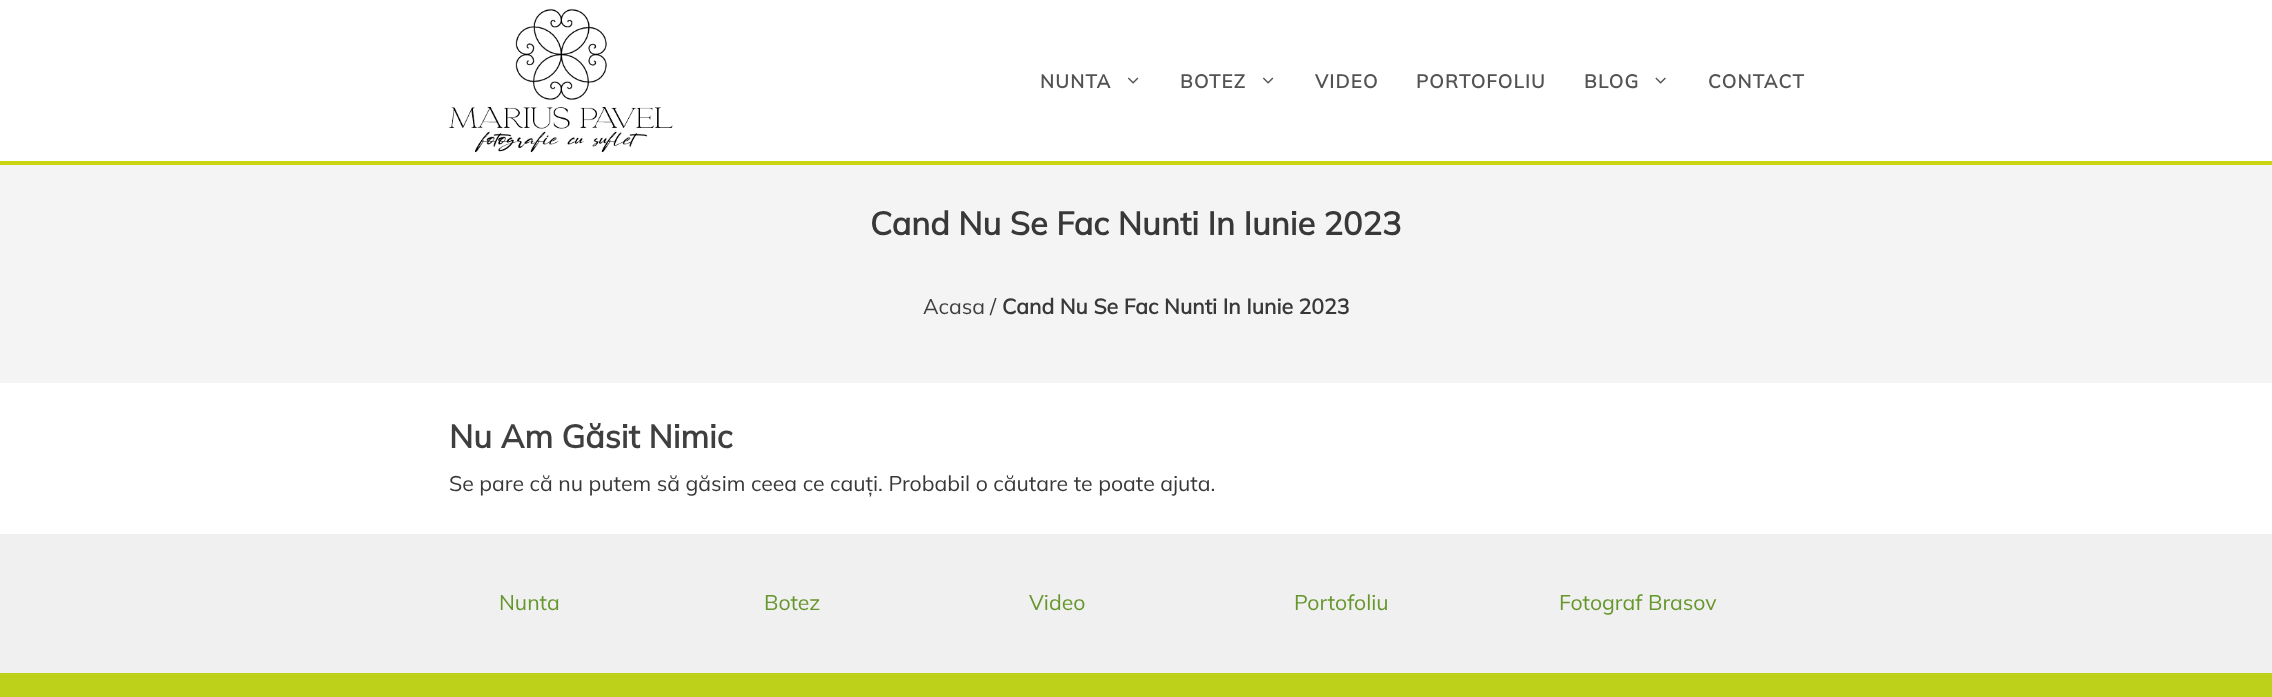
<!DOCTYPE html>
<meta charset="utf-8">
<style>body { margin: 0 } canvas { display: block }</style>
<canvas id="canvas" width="2272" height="697"></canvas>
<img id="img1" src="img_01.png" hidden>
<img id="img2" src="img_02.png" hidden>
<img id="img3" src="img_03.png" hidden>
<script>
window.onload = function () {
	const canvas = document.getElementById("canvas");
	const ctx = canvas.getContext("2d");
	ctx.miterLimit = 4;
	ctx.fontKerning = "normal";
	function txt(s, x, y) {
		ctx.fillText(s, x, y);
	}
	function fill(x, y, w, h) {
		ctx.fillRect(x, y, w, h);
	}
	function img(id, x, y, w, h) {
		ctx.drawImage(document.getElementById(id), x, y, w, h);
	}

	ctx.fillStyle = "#FFFFFF";
	fill(0, 0, 2272, 697);
	ctx.fillStyle = "#C8D510";
	fill(0, 161, 2272, 4);
	img("img1", 448, 8, 225, 145);
	img("img2", 1128, 77, 11, 7);
	img("img2", 1263, 77, 11, 7);
	img("img3", 1655, 77, 11, 7);
	ctx.fillStyle = "#F4F4F4";
	fill(0, 165, 2272, 218);
	ctx.fillStyle = "#F0F0F0";
	fill(0, 534, 2272, 139);
	ctx.fillStyle = "#BDD01A";
	fill(0, 673, 2272, 24);
	ctx.letterSpacing = "1.25px";
	ctx.font = "bold 18.75px Mulish";
	ctx.fillStyle = "#535353";
	txt("NUNTA", 1040, 88);
	txt("BOTEZ", 1180, 88);
	txt("VIDEO", 1315, 88);
	txt("PORTOFOLIU", 1416, 88);
	txt("BLOG", 1584, 88);
	txt("CONTACT", 1708, 88);
	ctx.letterSpacing = "0px";
	ctx.font = "bold 32.5px Mulish";
	ctx.fillStyle = "#383838";
	txt("Cand Nu Se Fac Nunti In Iunie 2023", 870, 235);
	ctx.font = "21.25px Mulish";
	ctx.fillStyle = "#3F3F3F";
	txt("Acasa", 923, 314);
	ctx.fillStyle = "#383838";
	txt("/", 990, 314);
	ctx.font = "bold 21.25px Mulish";
	txt("Cand Nu Se Fac Nunti In Iunie 2023", 1002, 314);
	ctx.font = "bold 32.5px Mulish";
	ctx.fillStyle = "#3F3F3F";
	txt("Nu Am Găsit Nimic", 449, 448);
	ctx.font = "21.25px Mulish";
	ctx.fillStyle = "#383838";
	txt("Se pare că nu putem să găsim ceea ce cauți. Probabil o căutare te poate ajuta.", 449, 491);
	ctx.fillStyle = "#66962C";
	txt("Nunta", 499, 610);
	txt("Botez", 764, 610);
	txt("Video", 1029, 610);
	txt("Portofoliu", 1294, 610);
	txt("Fotograf Brasov", 1559, 610);
};
</script>
